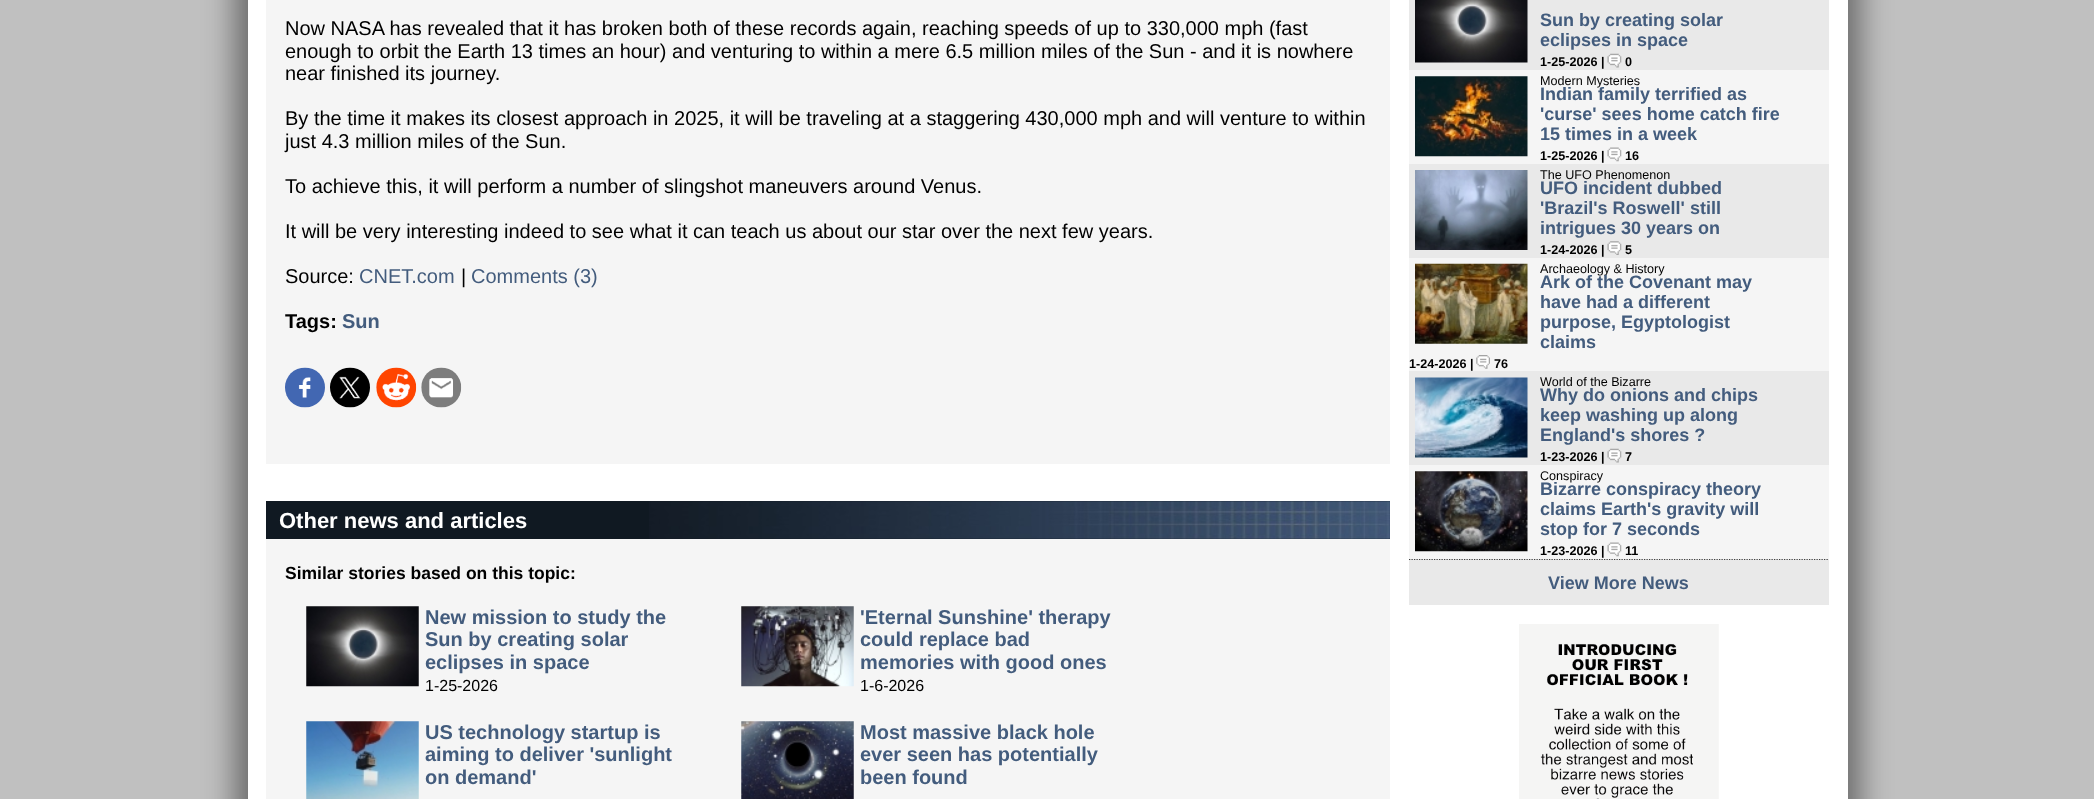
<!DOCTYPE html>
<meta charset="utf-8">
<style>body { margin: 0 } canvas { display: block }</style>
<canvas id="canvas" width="2094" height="799"></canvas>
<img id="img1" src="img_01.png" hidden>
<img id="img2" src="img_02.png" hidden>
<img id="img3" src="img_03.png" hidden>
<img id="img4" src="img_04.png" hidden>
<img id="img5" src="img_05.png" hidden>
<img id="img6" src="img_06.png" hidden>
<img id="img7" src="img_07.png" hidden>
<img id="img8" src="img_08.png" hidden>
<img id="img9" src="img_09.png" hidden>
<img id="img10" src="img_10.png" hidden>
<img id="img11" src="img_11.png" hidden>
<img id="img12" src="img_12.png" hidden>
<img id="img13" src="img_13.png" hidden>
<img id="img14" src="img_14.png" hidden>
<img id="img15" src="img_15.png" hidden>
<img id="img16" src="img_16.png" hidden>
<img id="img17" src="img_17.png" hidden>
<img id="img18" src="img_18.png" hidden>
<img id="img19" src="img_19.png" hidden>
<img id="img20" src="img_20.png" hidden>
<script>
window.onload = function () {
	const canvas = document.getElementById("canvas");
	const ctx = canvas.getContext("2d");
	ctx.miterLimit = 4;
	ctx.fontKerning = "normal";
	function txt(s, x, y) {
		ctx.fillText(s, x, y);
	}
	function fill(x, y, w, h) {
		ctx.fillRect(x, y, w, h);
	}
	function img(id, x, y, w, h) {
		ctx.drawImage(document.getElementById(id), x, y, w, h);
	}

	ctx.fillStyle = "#C0C0C0";
	fill(0, 0, 2094, 799);
	ctx.fillStyle = "rgba(0, 0, 0, 0.45)";
	ctx.filter = "blur(15.5px)";
	ctx.beginPath();
	ctx.rect(235, -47, 1538, 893);
	ctx.fill();
	ctx.filter = "none";
	ctx.filter = "blur(15.5px)";
	ctx.beginPath();
	ctx.rect(323, -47, 1537, 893);
	ctx.fill();
	ctx.filter = "none";
	ctx.fillStyle = "#FFFFFF";
	fill(248, 0, 1600, 799);
	ctx.fillStyle = "#F5F5F5";
	fill(266, 0, 1124, 464);
	img("img1", 285, 367, 40, 41);
	img("img2", 330, 367, 40, 41);
	img("img3", 376, 367, 41, 41);
	img("img4", 421, 367, 41, 41);
	ctx.fillStyle = "#101922";
	fill(266, 501, 1124, 38);
	img("img5", 649, 501, 741, 38);
	ctx.fillStyle = "#F5F5F5";
	fill(266, 539, 1124, 260);
	img("img6", 306, 606, 113, 81);
	img("img7", 741, 606, 113, 81);
	img("img8", 306, 721, 113, 78);
	img("img9", 741, 721, 113, 78);
	ctx.fillStyle = "#E9E9E9";
	fill(1409, 0, 420, 70);
	img("img10", 1415, 0, 113, 63);
	img("img11", 1607, 53, 15, 15);
	ctx.fillStyle = "#F5F5F5";
	fill(1409, 70, 420, 94);
	img("img12", 1415, 76, 113, 81);
	img("img13", 1607, 147, 15, 15);
	ctx.fillStyle = "#E9E9E9";
	fill(1409, 164, 420, 94);
	img("img14", 1415, 170, 113, 80);
	img("img15", 1607, 241, 15, 14);
	ctx.fillStyle = "#F5F5F5";
	fill(1409, 258, 420, 113);
	img("img16", 1415, 263, 113, 81);
	img("img17", 1476, 355, 14, 14);
	ctx.fillStyle = "#E9E9E9";
	fill(1409, 371, 420, 94);
	img("img18", 1415, 377, 113, 81);
	img("img11", 1607, 448, 15, 15);
	ctx.fillStyle = "#F5F5F5";
	fill(1409, 465, 420, 94);
	img("img19", 1415, 471, 113, 81);
	img("img13", 1607, 542, 15, 15);
	ctx.fillStyle = "#E9E9E9";
	fill(1409, 559, 420, 46);
	ctx.beginPath();
	ctx.moveTo(1409, 559.5);
	ctx.lineTo(1829, 559.5);
	ctx.strokeStyle = "#404040";
	ctx.lineWidth = 1.2;
	ctx.setLineDash([1.25, 1.25]);
	ctx.stroke();
	img("img20", 1519, 624, 200, 175);
	ctx.font = "20px Liberation Sans";
	ctx.fillStyle = "#000000";
	txt("Now NASA has revealed that it has broken both of these records again, reaching speeds of up to 330,000 mph (fast", 285, 35);
	txt("enough to orbit the Earth 13 times an hour) and venturing to within a mere 6.5 million miles of the Sun - and it is nowhere", 285, 58);
	txt("near finished its journey.", 285, 80);
	txt("By the time it makes its closest approach in 2025, it will be traveling at a staggering 430,000 mph and will venture to within", 285, 125);
	txt("just 4.3 million miles of the Sun.", 285, 148);
	txt("To achieve this, it will perform a number of slingshot maneuvers around Venus.", 285, 193);
	txt("It will be very interesting indeed to see what it can teach us about our star over the next few years.", 285, 238);
	txt("Source:", 285, 283);
	ctx.fillStyle = "#435C7D";
	txt("CNET.com", 359, 283);
	ctx.fillStyle = "#000000";
	txt("|", 461, 283);
	ctx.fillStyle = "#435C7D";
	txt("Comments (3)", 471, 283);
	ctx.font = "bold 20px Liberation Sans";
	ctx.fillStyle = "#000000";
	txt("Tags:", 285, 328);
	ctx.fillStyle = "#435C7D";
	txt("Sun", 342, 328);
	ctx.font = "bold 22px Liberation Sans";
	ctx.fillStyle = "#FFFFFF";
	txt("Other news and articles", 279, 528);
	ctx.font = "bold 17.5px Liberation Sans";
	ctx.fillStyle = "#000000";
	txt("Similar stories based on this topic:", 285, 579);
	ctx.font = "bold 20px Liberation Sans";
	ctx.fillStyle = "#435C7D";
	txt("New mission to study the", 425, 624);
	txt("Sun by creating solar", 425, 646);
	txt("eclipses in space", 425, 669);
	ctx.font = "16px Liberation Sans";
	ctx.fillStyle = "#000000";
	txt("1-25-2026", 425, 691);
	ctx.font = "bold 20px Liberation Sans";
	ctx.fillStyle = "#435C7D";
	txt("'Eternal Sunshine' therapy", 860, 624);
	txt("could replace bad", 860, 646);
	txt("memories with good ones", 860, 669);
	ctx.font = "16px Liberation Sans";
	ctx.fillStyle = "#000000";
	txt("1-6-2026", 860, 691);
	ctx.font = "bold 20px Liberation Sans";
	ctx.fillStyle = "#435C7D";
	txt("US technology startup is", 425, 739);
	txt("aiming to deliver 'sunlight", 425, 761);
	txt("on demand'", 425, 784);
	txt("Most massive black hole", 860, 739);
	txt("ever seen has potentially", 860, 761);
	txt("been found", 860, 784);
	ctx.font = "bold 18px Liberation Sans";
	txt("Sun by creating solar", 1540, 26);
	txt("eclipses in space", 1540, 46);
	ctx.font = "bold 12.6px Liberation Sans";
	ctx.fillStyle = "#000000";
	txt("1-25-2026 |", 1540, 66);
	txt("0", 1625, 66);
	ctx.font = "12.6px Liberation Sans";
	txt("Modern Mysteries", 1540, 85);
	ctx.font = "bold 18px Liberation Sans";
	ctx.fillStyle = "#435C7D";
	txt("Indian family terrified as", 1540, 100);
	txt("'curse' sees home catch fire", 1540, 120);
	txt("15 times in a week", 1540, 140);
	ctx.font = "bold 12.6px Liberation Sans";
	ctx.fillStyle = "#000000";
	txt("1-25-2026 |", 1540, 160);
	txt("16", 1625, 160);
	ctx.font = "12.6px Liberation Sans";
	txt("The UFO Phenomenon", 1540, 179);
	ctx.font = "bold 18px Liberation Sans";
	ctx.fillStyle = "#435C7D";
	txt("UFO incident dubbed", 1540, 194);
	txt("'Brazil's Roswell' still", 1540, 214);
	txt("intrigues 30 years on", 1540, 234);
	ctx.font = "bold 12.6px Liberation Sans";
	ctx.fillStyle = "#000000";
	txt("1-24-2026 |", 1540, 254);
	txt("5", 1625, 254);
	ctx.font = "12.6px Liberation Sans";
	txt("Archaeology & History", 1540, 273);
	ctx.font = "bold 18px Liberation Sans";
	ctx.fillStyle = "#435C7D";
	txt("Ark of the Covenant may", 1540, 288);
	txt("have had a different", 1540, 308);
	txt("purpose, Egyptologist", 1540, 328);
	txt("claims", 1540, 348);
	ctx.font = "bold 12.6px Liberation Sans";
	ctx.fillStyle = "#000000";
	txt("1-24-2026 |", 1409, 368);
	txt("76", 1494, 368);
	ctx.font = "12.6px Liberation Sans";
	txt("World of the Bizarre", 1540, 386);
	ctx.font = "bold 18px Liberation Sans";
	ctx.fillStyle = "#435C7D";
	txt("Why do onions and chips", 1540, 401);
	txt("keep washing up along", 1540, 421);
	txt("England's shores ?", 1540, 441);
	ctx.font = "bold 12.6px Liberation Sans";
	ctx.fillStyle = "#000000";
	txt("1-23-2026 |", 1540, 461);
	txt("7", 1625, 461);
	ctx.font = "12.6px Liberation Sans";
	txt("Conspiracy", 1540, 480);
	ctx.font = "bold 18px Liberation Sans";
	ctx.fillStyle = "#435C7D";
	txt("Bizarre conspiracy theory", 1540, 495);
	txt("claims Earth's gravity will", 1540, 515);
	txt("stop for 7 seconds", 1540, 535);
	ctx.font = "bold 12.6px Liberation Sans";
	ctx.fillStyle = "#000000";
	txt("1-23-2026 |", 1540, 555);
	txt("11", 1625, 555);
	ctx.font = "bold 18px Liberation Sans";
	ctx.fillStyle = "#435C7D";
	txt("View More News", 1548, 589);
};
</script>
